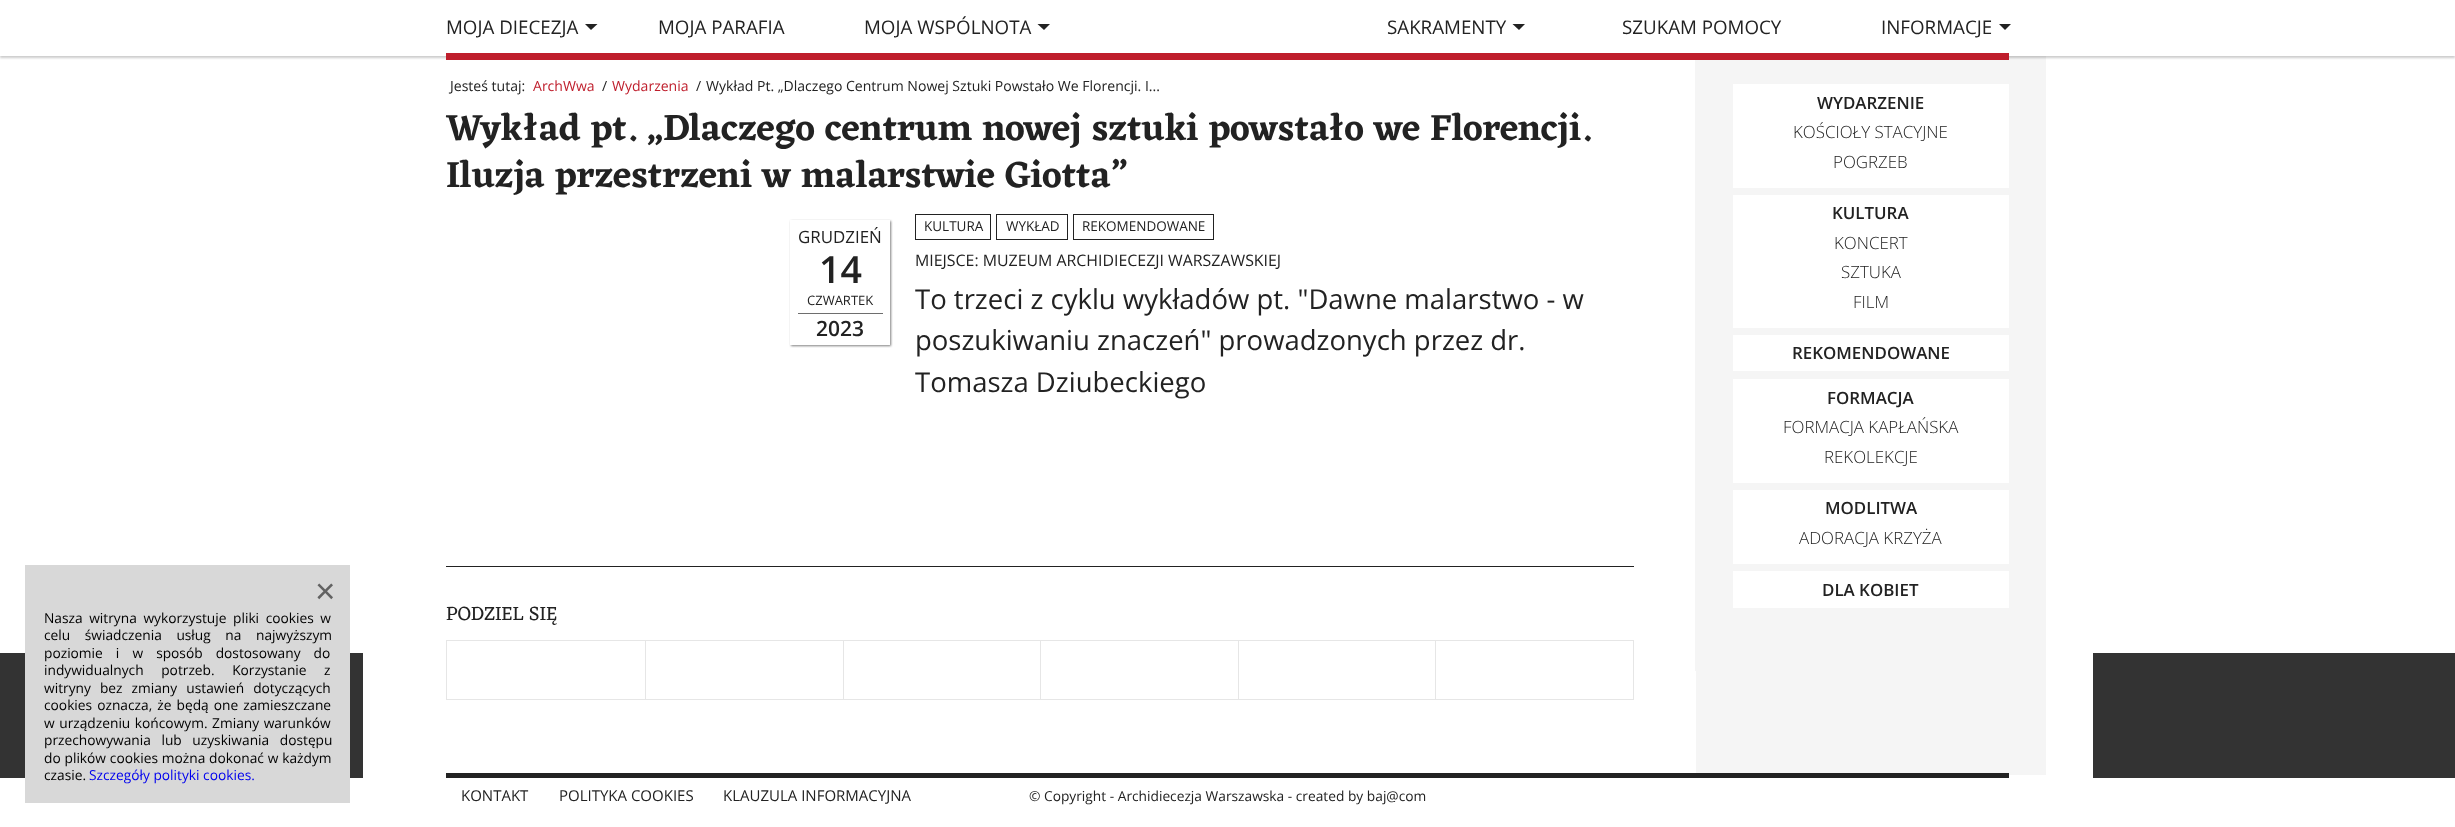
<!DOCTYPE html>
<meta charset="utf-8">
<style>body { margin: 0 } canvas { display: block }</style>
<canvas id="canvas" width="2455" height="827"></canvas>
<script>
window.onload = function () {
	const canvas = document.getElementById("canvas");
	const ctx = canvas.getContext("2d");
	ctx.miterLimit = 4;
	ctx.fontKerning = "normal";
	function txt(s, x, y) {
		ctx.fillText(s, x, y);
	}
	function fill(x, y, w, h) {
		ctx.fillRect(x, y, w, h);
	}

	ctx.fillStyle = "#FFFFFF";
	fill(0, 0, 2455, 827);
	ctx.fillStyle = "#F5F5F5";
	fill(1696, 56, 350, 719);
	fill(1695, 60, 1, 611);
	ctx.fillStyle = "rgba(0, 0, 0, 0.2)";
	ctx.filter = "blur(1px)";
	ctx.beginPath();
	ctx.rect(0, -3, 2455, 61);
	ctx.fill();
	ctx.filter = "none";
	ctx.fillStyle = "#FFFFFF";
	fill(0, 0, 2455, 56);
	ctx.fillStyle = "#222222";
	ctx.beginPath();
	ctx.moveTo(585, 24);
	ctx.lineTo(597.5, 24);
	ctx.lineTo(591, 30);
	ctx.closePath();
	ctx.fill();
	ctx.beginPath();
	ctx.moveTo(1037.5, 24);
	ctx.lineTo(1050, 24);
	ctx.lineTo(1044, 30);
	ctx.closePath();
	ctx.fill();
	ctx.beginPath();
	ctx.moveTo(1512.5, 24);
	ctx.lineTo(1525, 24);
	ctx.lineTo(1519, 30);
	ctx.closePath();
	ctx.fill();
	ctx.beginPath();
	ctx.moveTo(1999, 24);
	ctx.lineTo(2011, 24);
	ctx.lineTo(2005, 30);
	ctx.closePath();
	ctx.fill();
	ctx.fillStyle = "#BF1E2C";
	fill(446, 53, 1563, 7);
	ctx.fillStyle = "#333333";
	fill(0, 653, 363, 125);
	ctx.fillStyle = "#D8D8D8";
	fill(25, 565, 325, 238);
	ctx.fillStyle = "#222222";
	fill(446, 566, 1188, 1);
	ctx.save();
	ctx.beginPath();
	ctx.moveTo(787, 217);
	ctx.lineTo(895, 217);
	ctx.lineTo(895, 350);
	ctx.lineTo(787, 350);
	ctx.closePath();
	ctx.moveTo(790, 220);
	ctx.lineTo(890, 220);
	ctx.lineTo(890, 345);
	ctx.lineTo(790, 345);
	ctx.closePath();
	ctx.clip("evenodd");
	ctx.fillStyle = "rgba(0, 0, 0, 0.5)";
	ctx.filter = "blur(1px)";
	ctx.beginPath();
	ctx.rect(791, 221, 100, 125);
	ctx.fill();
	ctx.filter = "none";
	ctx.restore();
	ctx.fillStyle = "#6E6E6E";
	fill(798, 313, 85, 1);
	ctx.strokeStyle = "#222222";
	ctx.strokeRect(915.5, 214.5, 75, 25);
	ctx.strokeRect(996.5, 214.5, 71, 25);
	ctx.strokeRect(1073.5, 214.5, 140, 25);
	ctx.strokeStyle = "#E6E6E6";
	ctx.strokeRect(446.5, 640.5, 1187, 59);
	ctx.fillStyle = "#E6E6E6";
	fill(645, 641, 1, 58);
	fill(843, 641, 1, 58);
	fill(1040, 641, 1, 58);
	fill(1238, 641, 1, 58);
	fill(1435, 641, 1, 58);
	ctx.fillStyle = "#FFFFFF";
	fill(1733, 84, 276, 104);
	fill(1733, 195, 276, 133);
	fill(1733, 335, 276, 36);
	fill(1733, 379, 276, 104);
	fill(1733, 490, 276, 74);
	fill(1733, 571, 276, 37);
	ctx.fillStyle = "#222222";
	fill(446, 773, 1563, 5);
	ctx.fillStyle = "#333333";
	fill(2093, 653, 362, 125);
	ctx.font = "18.75px Open Sans";
	ctx.fillStyle = "#222222";
	txt("MOJA DIECEZJA", 446, 34);
	txt("MOJA PARAFIA", 658, 34);
	txt("MOJA WSPÓLNOTA", 864, 34);
	txt("SAKRAMENTY", 1387, 34);
	txt("SZUKAM POMOCY", 1622, 34);
	txt("INFORMACJE", 1881, 34);
	ctx.font = "35px Liberation Sans";
	ctx.fillStyle = "#626262";
	txt("×", 315, 603);
	ctx.wordSpacing = "3px";
	ctx.font = "13.75px Open Sans";
	ctx.fillStyle = "#000000";
	txt("Nasza witryna wykorzystuje pliki cookies w", 44, 623);
	ctx.wordSpacing = "11px";
	txt("celu świadczenia usług na najwyższym", 44, 640);
	ctx.wordSpacing = "9.5px";
	txt("poziomie i w sposób dostosowany do", 44, 658);
	ctx.wordSpacing = "14px";
	txt("indywidualnych potrzeb. Korzystanie z", 44, 675);
	ctx.wordSpacing = "5.5px";
	txt("witryny bez zmiany ustawień dotyczących", 44, 693);
	ctx.wordSpacing = "1.5px";
	txt("cookies oznacza, że będą one zamieszczane", 44, 710);
	ctx.wordSpacing = "1px";
	txt("w urządzeniu końcowym. Zmiany warunków", 44, 728);
	ctx.wordSpacing = "7px";
	txt("przechowywania lub uzyskiwania dostępu", 44, 745);
	ctx.wordSpacing = "0.25px";
	txt("do plików cookies można dokonać w każdym", 44, 763);
	ctx.wordSpacing = "0px";
	txt("czasie.", 44, 780);
	ctx.fillStyle = "#0000EE";
	txt("Szczegóły polityki cookies.", 89, 780);
	ctx.font = "14.05px Open Sans";
	ctx.fillStyle = "#222222";
	txt("Jesteś tutaj:", 450, 91);
	ctx.fillStyle = "#BF1E2C";
	txt("ArchWwa", 533, 91);
	ctx.fillStyle = "#222222";
	txt("/", 602, 91);
	ctx.fillStyle = "#BF1E2C";
	txt("Wydarzenia", 612, 91);
	ctx.fillStyle = "#222222";
	txt("/", 696, 91);
	txt("Wykład Pt. „Dlaczego Centrum Nowej Sztuki Powstało We Florencji. I...", 706, 91);
	ctx.font = "600 37.5px Eczar";
	txt("Wykład pt. „Dlaczego centrum nowej sztuki powstało we Florencji.", 446, 140);
	txt("Iluzja przestrzeni w malarstwie Giotta”", 446, 187);
	ctx.font = "16.9px Open Sans";
	txt("GRUDZIEŃ", 798, 243);
	ctx.font = "600 37.5px Open Sans";
	txt("14", 819, 283);
	ctx.font = "13px Open Sans";
	txt("CZWARTEK", 807, 305);
	ctx.font = "600 21px Open Sans";
	txt("2023", 816, 336);
	ctx.font = "13.5px Open Sans";
	txt("KULTURA", 924, 231);
	txt("WYKŁAD", 1006, 231);
	txt("REKOMENDOWANE", 1082, 231);
	ctx.font = "15.9px Open Sans";
	txt("MIEJSCE: MUZEUM ARCHIDIECEZJI WARSZAWSKIEJ", 915, 266);
	ctx.font = "27.5px Open Sans";
	txt("To trzeci z cyklu wykładów pt. \"Dawne malarstwo - w", 915, 309);
	txt("poszukiwaniu znaczeń\" prowadzonych przez dr.", 915, 350);
	txt("Tomasza Dziubeckiego", 915, 392);
	ctx.font = "20px Eczar";
	txt("PODZIEL SIĘ", 446, 620);
	ctx.font = "600 16.9px Open Sans";
	txt("WYDARZENIE", 1817, 109);
	ctx.font = "300 16.9px Open Sans";
	txt("KOŚCIOŁY STACYJNE", 1793, 138);
	txt("POGRZEB", 1833, 168);
	ctx.font = "600 16.9px Open Sans";
	txt("KULTURA", 1832, 219);
	ctx.font = "300 16.9px Open Sans";
	txt("KONCERT", 1834, 249);
	txt("SZTUKA", 1841, 278);
	txt("FILM", 1853, 308);
	ctx.font = "600 16.9px Open Sans";
	txt("REKOMENDOWANE", 1792, 359);
	txt("FORMACJA", 1827, 404);
	ctx.font = "300 16.9px Open Sans";
	txt("FORMACJA KAPŁAŃSKA", 1783, 433);
	txt("REKOLEKCJE", 1824, 463);
	ctx.font = "600 16.9px Open Sans";
	txt("MODLITWA", 1825, 514);
	ctx.font = "300 16.9px Open Sans";
	txt("ADORACJA KRZYŻA", 1799, 544);
	ctx.font = "600 16.9px Open Sans";
	txt("DLA KOBIET", 1822, 596);
	ctx.font = "15px Open Sans";
	txt("KONTAKT", 461, 801);
	txt("POLITYKA COOKIES", 559, 801);
	txt("KLAUZULA INFORMACYJNA", 723, 801);
	ctx.font = "13.75px Open Sans";
	txt("© Copyright - Archidiecezja Warszawska - created by baj@com", 1029, 801);
};
</script>
